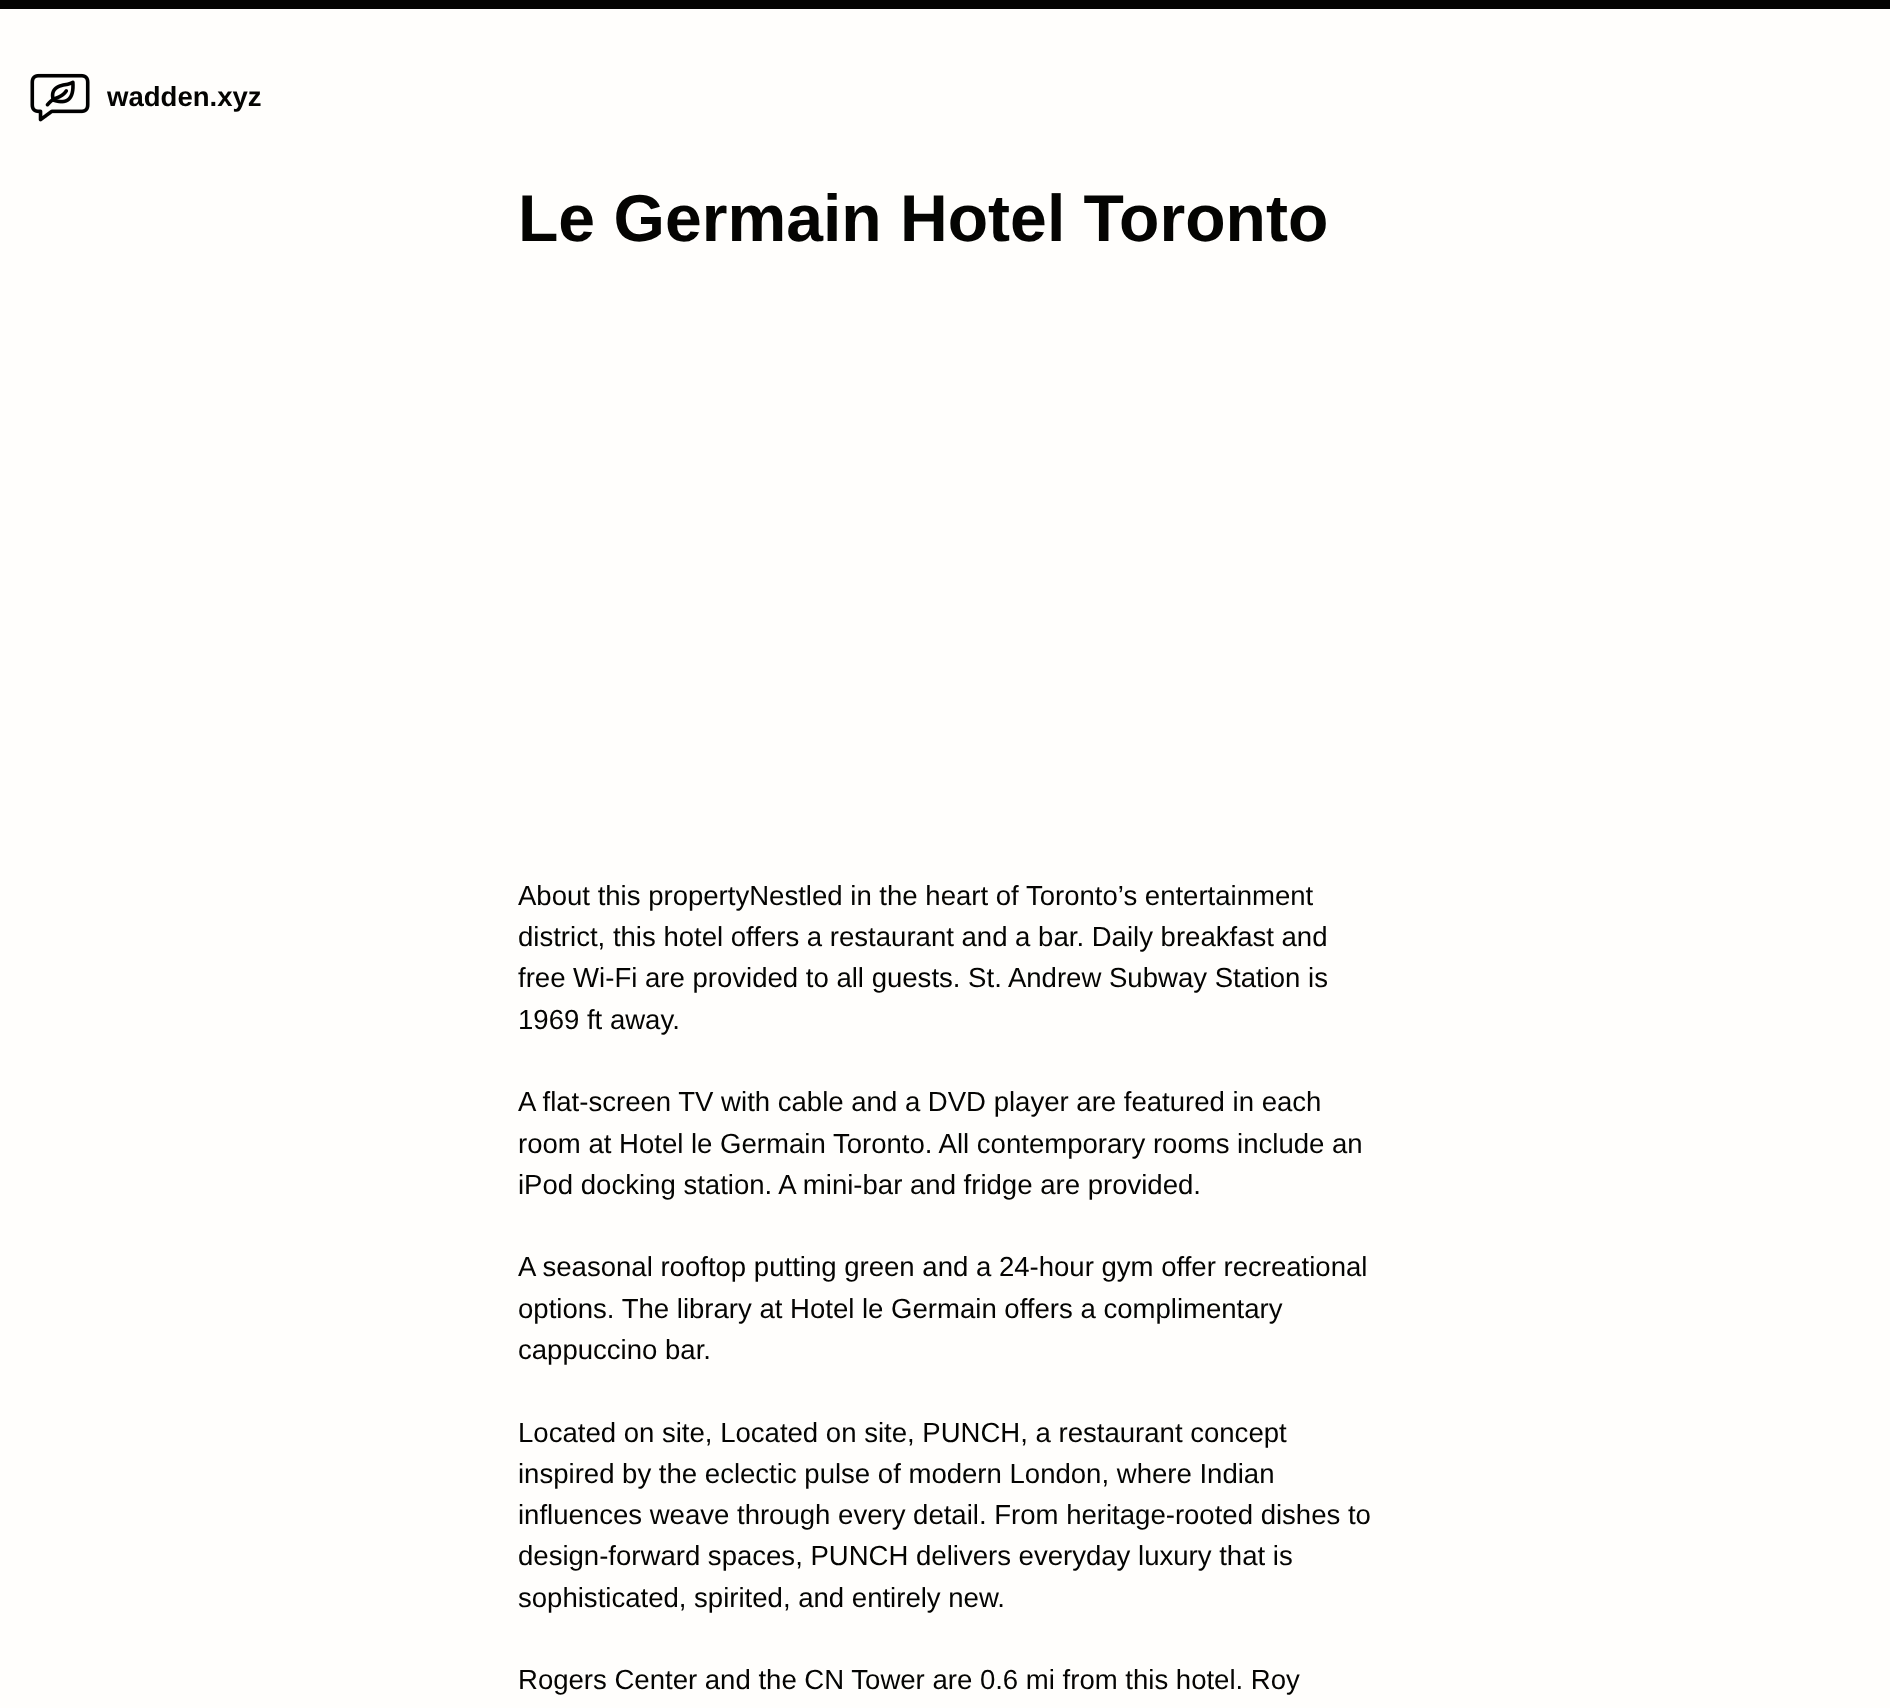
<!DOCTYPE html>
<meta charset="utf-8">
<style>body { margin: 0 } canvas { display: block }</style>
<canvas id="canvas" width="1890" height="1708"></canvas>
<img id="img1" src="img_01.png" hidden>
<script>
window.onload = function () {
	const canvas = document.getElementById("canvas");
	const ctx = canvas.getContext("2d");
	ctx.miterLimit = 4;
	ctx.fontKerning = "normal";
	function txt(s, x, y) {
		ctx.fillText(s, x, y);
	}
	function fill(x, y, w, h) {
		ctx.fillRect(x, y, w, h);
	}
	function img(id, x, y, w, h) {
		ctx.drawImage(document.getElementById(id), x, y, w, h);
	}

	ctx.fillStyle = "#FFFEFC";
	fill(0, 0, 1890, 1708);
	ctx.fillStyle = "#040402";
	fill(0, 0, 1890, 9);
	img("img1", 30, 73, 60, 49);
	ctx.font = "bold 27.55px Liberation Sans";
	txt("wadden.xyz", 107, 106);
	ctx.font = "bold 66.1px Liberation Sans";
	txt("Le Germain Hotel Toronto", 518, 241);
	ctx.font = "27.55px Liberation Sans";
	txt("About this propertyNestled in the heart of Toronto’s entertainment", 518, 905);
	txt("district, this hotel offers a restaurant and a bar. Daily breakfast and", 518, 946);
	txt("free Wi-Fi are provided to all guests. St. Andrew Subway Station is", 518, 987);
	txt("1969 ft away.", 518, 1029);
	txt("A flat-screen TV with cable and a DVD player are featured in each", 518, 1111);
	txt("room at Hotel le Germain Toronto. All contemporary rooms include an", 518, 1153);
	txt("iPod docking station. A mini-bar and fridge are provided.", 518, 1194);
	txt("A seasonal rooftop putting green and a 24-hour gym offer recreational", 518, 1276);
	txt("options. The library at Hotel le Germain offers a complimentary", 518, 1318);
	txt("cappuccino bar.", 518, 1359);
	txt("Located on site, Located on site, PUNCH, a restaurant concept", 518, 1442);
	txt("inspired by the eclectic pulse of modern London, where Indian", 518, 1483);
	txt("influences weave through every detail. From heritage-rooted dishes to", 518, 1524);
	txt("design-forward spaces, PUNCH delivers everyday luxury that is", 518, 1565);
	txt("sophisticated, spirited, and entirely new.", 518, 1607);
	txt("Rogers Center and the CN Tower are 0.6 mi from this hotel. Roy", 518, 1689);
};
</script>
